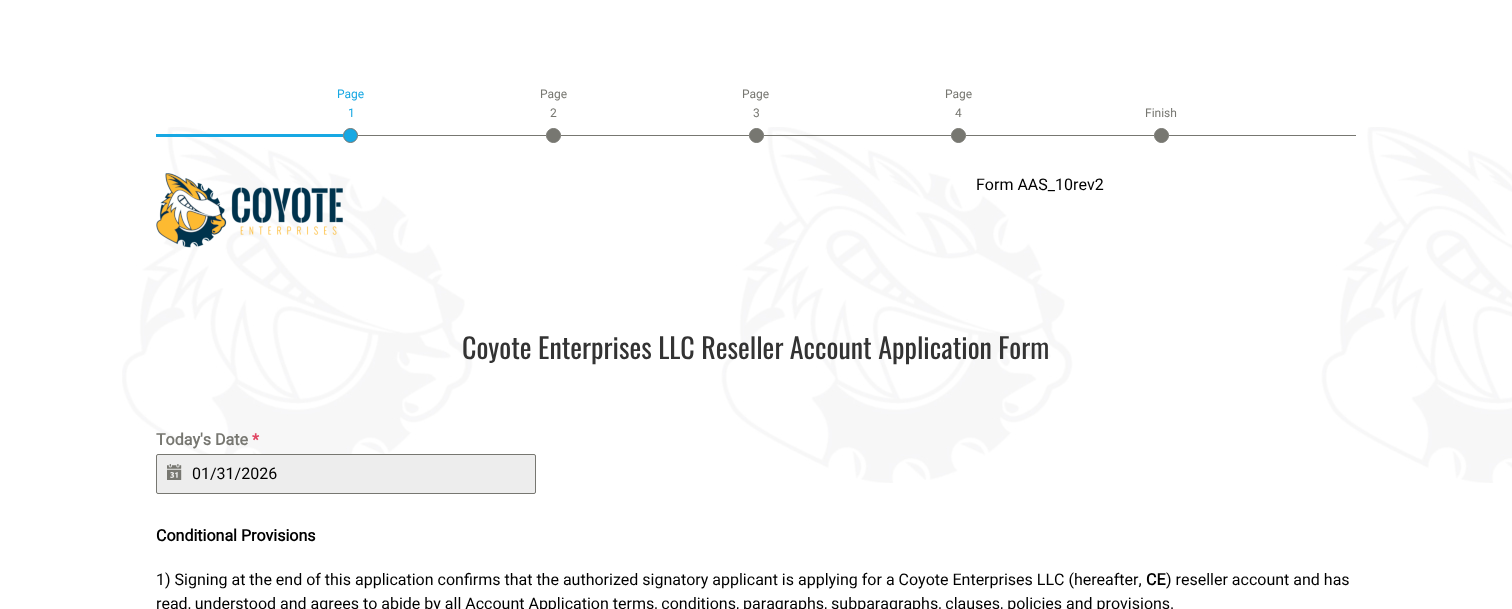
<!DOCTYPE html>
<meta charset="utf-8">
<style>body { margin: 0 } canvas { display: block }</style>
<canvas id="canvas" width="1512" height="609"></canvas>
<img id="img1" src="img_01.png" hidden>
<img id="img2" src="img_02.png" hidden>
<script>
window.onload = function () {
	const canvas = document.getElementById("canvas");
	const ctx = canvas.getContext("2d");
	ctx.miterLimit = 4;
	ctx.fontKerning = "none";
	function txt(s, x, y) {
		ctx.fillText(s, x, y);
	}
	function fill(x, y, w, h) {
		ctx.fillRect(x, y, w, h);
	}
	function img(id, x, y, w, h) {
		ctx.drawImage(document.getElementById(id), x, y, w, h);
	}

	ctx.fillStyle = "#FFFFFF";
	fill(0, 0, 1512, 609);
	img("img1", 122, 127, 1390, 356);
	ctx.fillStyle = "#17A8E3";
	ctx.beginPath();
	ctx.arc(350.5, 135.5, 7, 0, Math.PI * 2);
	ctx.fill();
	ctx.strokeStyle = "#777771";
	ctx.stroke();
	ctx.fillStyle = "#777771";
	ctx.beginPath();
	ctx.arc(553.5, 135.5, 7, 0, Math.PI * 2);
	ctx.fill();
	ctx.stroke();
	ctx.beginPath();
	ctx.arc(756.5, 135.5, 7, 0, Math.PI * 2);
	ctx.fill();
	ctx.stroke();
	ctx.beginPath();
	ctx.arc(958.5, 135.5, 7, 0, Math.PI * 2);
	ctx.fill();
	ctx.stroke();
	ctx.beginPath();
	ctx.arc(1161.5, 135.5, 7, 0, Math.PI * 2);
	ctx.fill();
	ctx.stroke();
	ctx.fillStyle = "#17A8E3";
	fill(156, 134, 187, 3);
	ctx.fillStyle = "#777771";
	fill(358, 135, 188, 1);
	fill(561, 135, 188, 1);
	fill(764, 135, 187, 1);
	fill(966, 135, 188, 1);
	fill(1169, 135, 187, 1);
	img("img2", 156, 173, 187, 75);
	ctx.fillStyle = "#EDEDED";
	ctx.beginPath();
	ctx.roundRect(156.5, 454.5, 379, 39, 1.5);
	ctx.fill();
	ctx.stroke();
	ctx.font = "12px Roboto";
	ctx.fillStyle = "#17A8E3";
	txt("Page", 337, 98);
	txt("1", 348, 117);
	ctx.fillStyle = "#777771";
	txt("Page", 540, 98);
	txt("2", 550, 117);
	txt("Page", 742, 98);
	txt("3", 753, 117);
	txt("Page", 945, 98);
	txt("4", 955, 117);
	txt("Finish", 1145, 117);
	ctx.font = "16px Roboto";
	ctx.fillStyle = "#000000";
	txt("Form AAS_10rev2", 976, 190);
	ctx.font = "28px Oswald";
	ctx.fillStyle = "#333333";
	txt("Coyote Enterprises LLC Reseller Account Application Form", 462, 359);
	ctx.font = "bold 16px Roboto";
	ctx.fillStyle = "#777771";
	txt("Today's Date", 156, 445);
	ctx.fillStyle = "#E04562";
	txt("*", 252, 445);
	ctx.font = "16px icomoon";
	ctx.fillStyle = "#777771";
	txt("📅", 166, 479);
	ctx.font = "16px Roboto";
	ctx.fillStyle = "#000000";
	txt("01/31/2026", 192, 479);
	ctx.font = "bold 16px Roboto";
	txt("Conditional Provisions", 156, 541);
	ctx.font = "16px Roboto";
	txt("1) Signing at the end of this application confirms that the authorized signatory applicant is applying for a Coyote Enterprises LLC (hereafter,", 156, 585);
	ctx.font = "bold 16px Roboto";
	txt("CE", 1146, 585);
	ctx.font = "16px Roboto";
	txt(") reseller account and has", 1166, 585);
	txt("read, understood and agrees to abide by all Account Application terms, conditions, paragraphs, subparagraphs, clauses, policies and provisions.", 156, 609);
};
</script>
